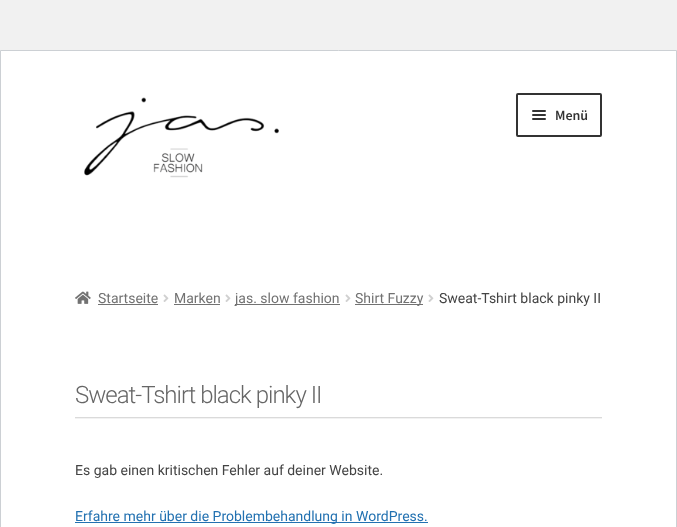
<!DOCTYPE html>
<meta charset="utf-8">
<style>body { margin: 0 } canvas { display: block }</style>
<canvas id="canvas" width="677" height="527"></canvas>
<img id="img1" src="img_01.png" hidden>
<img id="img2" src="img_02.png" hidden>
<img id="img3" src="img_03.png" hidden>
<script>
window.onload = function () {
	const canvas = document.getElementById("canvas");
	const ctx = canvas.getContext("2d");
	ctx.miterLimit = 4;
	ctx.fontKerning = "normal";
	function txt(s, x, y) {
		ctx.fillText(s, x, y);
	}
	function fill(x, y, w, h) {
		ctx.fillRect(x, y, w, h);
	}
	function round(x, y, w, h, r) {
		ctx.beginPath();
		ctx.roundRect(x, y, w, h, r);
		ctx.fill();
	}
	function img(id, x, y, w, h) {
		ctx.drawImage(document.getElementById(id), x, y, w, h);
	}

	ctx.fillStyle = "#F1F1F1";
	fill(0, 0, 677, 527);
	ctx.fillStyle = "#FFFFFF";
	ctx.beginPath();
	ctx.rect(0.5, 50.5, 676, 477);
	ctx.fill();
	ctx.strokeStyle = "#CCD0D4";
	ctx.stroke();
	img("img1", 84, 97, 195, 81);
	ctx.beginPath();
	ctx.roundRect(517, 94, 84, 42, 1);
	ctx.strokeStyle = "#333333";
	ctx.lineWidth = 2;
	ctx.stroke();
	ctx.fillStyle = "#333333";
	round(532, 110, 14, 2, 1);
	round(532, 114, 14, 2, 1);
	round(532, 118, 14, 2, 1);
	img("img2", 75, 291, 16, 13);
	ctx.fillStyle = "#727272";
	fill(98, 304, 60, 1);
	img("img3", 163, 294, 6, 8);
	fill(174, 304, 46, 1);
	img("img3", 225, 294, 6, 8);
	fill(235, 304, 105, 1);
	img("img3", 345, 294, 6, 8);
	fill(355, 304, 68, 1);
	img("img3", 428, 294, 6, 8);
	ctx.fillStyle = "#F2F2F2";
	fill(75, 418, 527, 1);
	ctx.fillStyle = "#DADADA";
	fill(75, 417, 527, 1);
	ctx.fillStyle = "#2271B1";
	fill(75, 522, 353, 1);
	ctx.font = "600 14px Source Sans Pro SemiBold";
	ctx.fillStyle = "#333333";
	txt("Menü", 555, 120);
	ctx.font = "14px Roboto";
	ctx.fillStyle = "#727272";
	txt("Startseite", 98, 303);
	txt("Marken", 174, 303);
	txt("jas. slow fashion", 235, 303);
	txt("Shirt Fuzzy", 355, 303);
	ctx.fillStyle = "#444444";
	txt("Sweat-Tshirt black pinky II", 439, 303);
	ctx.letterSpacing = "-1px";
	ctx.font = "300 24px Roboto";
	ctx.fillStyle = "#666666";
	txt("Sweat-Tshirt black pinky II", 75, 403);
	ctx.letterSpacing = "0px";
	ctx.font = "14px Roboto";
	ctx.fillStyle = "#444444";
	txt("Es gab einen kritischen Fehler auf deiner Website.", 75, 475);
	ctx.fillStyle = "#2271B1";
	txt("Erfahre mehr über die Problembehandlung in WordPress.", 75, 521);
};
</script>
